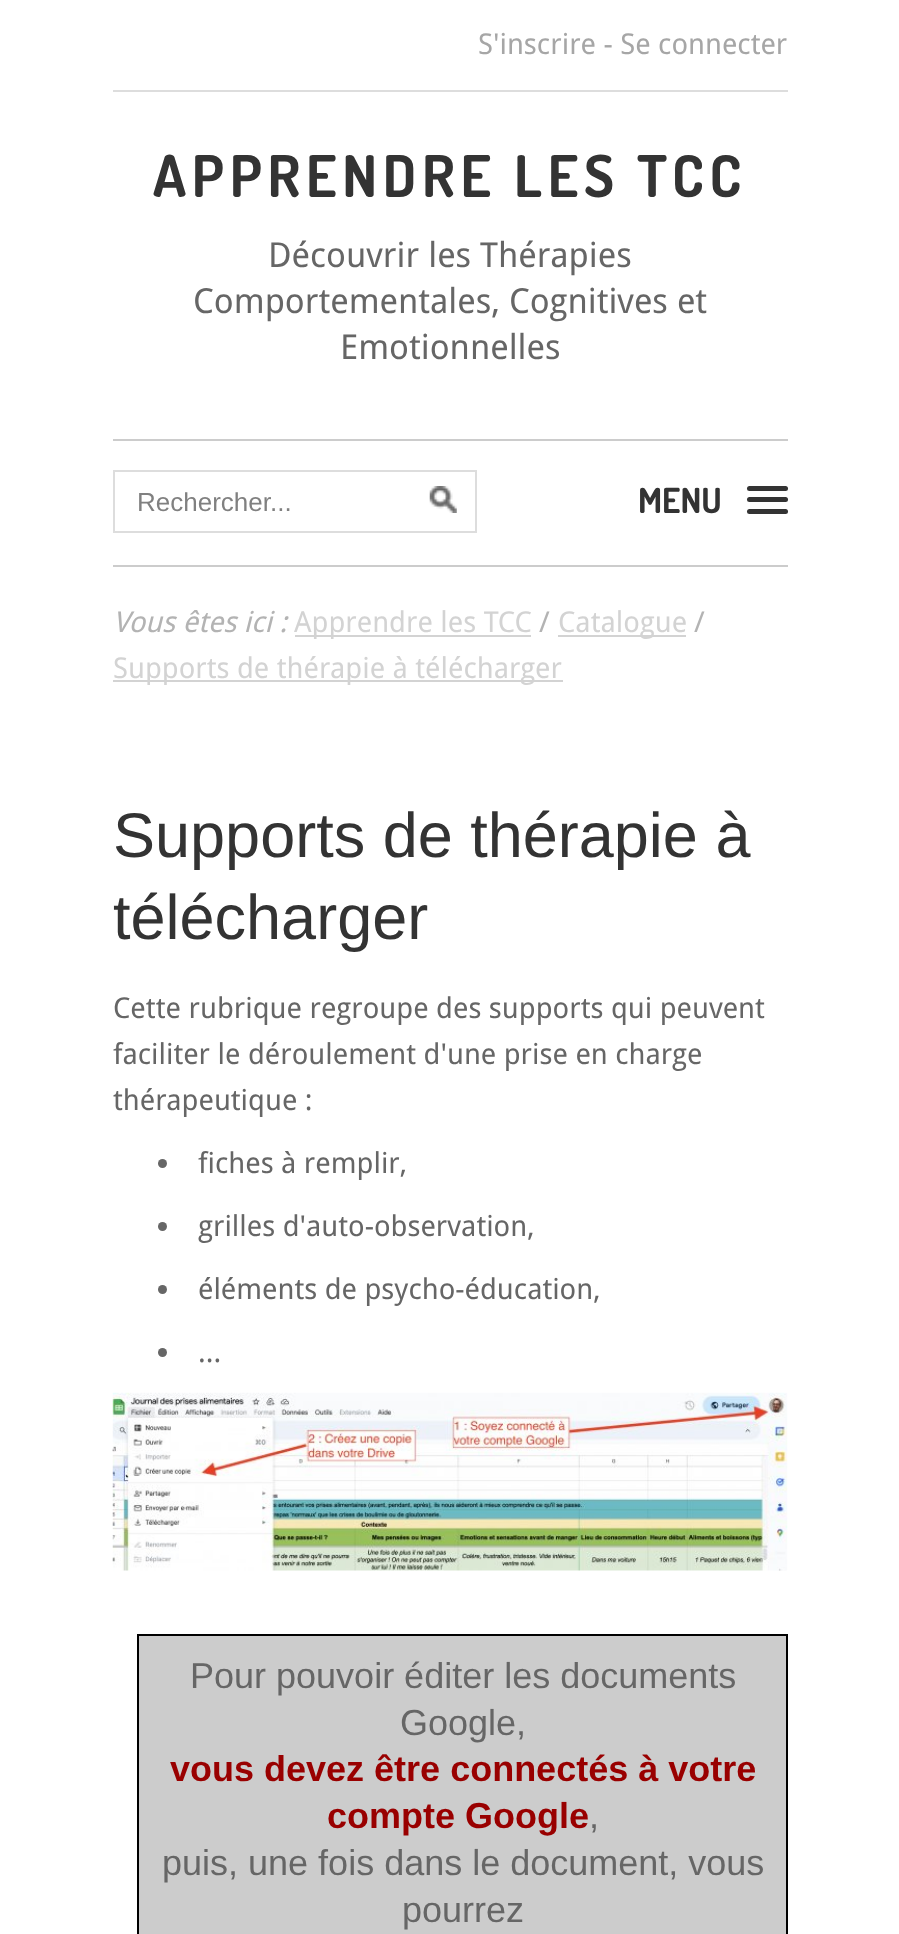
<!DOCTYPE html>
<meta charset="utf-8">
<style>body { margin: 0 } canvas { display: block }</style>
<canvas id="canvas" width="899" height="1934"></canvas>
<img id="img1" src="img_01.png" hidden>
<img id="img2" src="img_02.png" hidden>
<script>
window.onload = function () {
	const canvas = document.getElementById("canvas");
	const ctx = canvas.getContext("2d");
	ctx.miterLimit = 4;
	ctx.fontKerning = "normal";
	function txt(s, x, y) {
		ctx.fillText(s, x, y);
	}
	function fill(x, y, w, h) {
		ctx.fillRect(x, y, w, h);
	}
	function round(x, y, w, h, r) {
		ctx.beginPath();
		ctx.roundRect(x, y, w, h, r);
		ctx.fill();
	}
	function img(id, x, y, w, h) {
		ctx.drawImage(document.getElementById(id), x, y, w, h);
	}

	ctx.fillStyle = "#FFFFFF";
	fill(0, 0, 899, 1934);
	ctx.fillStyle = "#DDDDDD";
	fill(113, 90, 675, 2);
	ctx.strokeStyle = "#DDDDDD";
	ctx.lineWidth = 2;
	ctx.strokeRect(114, 471, 362, 61);
	img("img1", 429, 486, 28, 27);
	ctx.fillStyle = "#CCCCCC";
	fill(113, 439, 675, 2);
	fill(113, 565, 675, 2);
	ctx.fillStyle = "#333333";
	round(747, 486, 41, 5, 2.5);
	round(747, 497, 41, 5, 2.5);
	round(747, 509, 41, 5, 2.5);
	ctx.fillStyle = "#D3D3D3";
	fill(295, 635, 236, 2);
	fill(558, 635, 128, 2);
	fill(113, 680, 450, 2);
	ctx.fillStyle = "#666666";
	ctx.beginPath();
	ctx.arc(162.5, 1163.5, 4.5, 0, Math.PI * 2);
	ctx.fill();
	ctx.beginPath();
	ctx.arc(162.5, 1226.5, 4.5, 0, Math.PI * 2);
	ctx.fill();
	ctx.beginPath();
	ctx.arc(162.5, 1289.5, 4.5, 0, Math.PI * 2);
	ctx.fill();
	ctx.beginPath();
	ctx.arc(162.5, 1352.5, 4.5, 0, Math.PI * 2);
	ctx.fill();
	img("img2", 112, 1392, 676, 179);
	ctx.fillStyle = "#CCCCCC";
	ctx.beginPath();
	ctx.rect(138, 1635, 649, 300);
	ctx.fill();
	ctx.strokeStyle = "#000000";
	ctx.stroke();
	ctx.font = "28.8px Droid Sans";
	ctx.fillStyle = "#A6A6A6";
	txt("S'inscrire - Se connecter", 478, 54);
	ctx.letterSpacing = "5.75px";
	ctx.font = "bold 57.6px Dosis";
	ctx.fillStyle = "#333333";
	txt("APPRENDRE LES TCC", 153, 197);
	ctx.letterSpacing = "0px";
	ctx.font = "34.5px Droid Sans";
	ctx.fillStyle = "#666666";
	txt("Découvrir les Thérapies", 268, 267);
	txt("Comportementales, Cognitives et", 193, 313);
	txt("Emotionnelles", 340, 359);
	ctx.font = "26px Liberation Sans";
	ctx.fillStyle = "#808080";
	txt("Rechercher...", 137, 511);
	ctx.font = "bold 34.5px Dosis";
	ctx.fillStyle = "#333333";
	txt("MENU", 638, 513);
	ctx.font = "italic 28.8px Droid Sans";
	ctx.fillStyle = "#B3B3B3";
	txt("Vous êtes ici :", 113, 632);
	ctx.font = "28.8px Droid Sans";
	ctx.fillStyle = "#D3D3D3";
	txt("Apprendre les TCC", 294, 632);
	ctx.fillStyle = "#B3B3B3";
	txt("/", 539, 632);
	ctx.fillStyle = "#D3D3D3";
	txt("Catalogue", 558, 632);
	ctx.fillStyle = "#B3B3B3";
	txt("/", 694, 632);
	ctx.fillStyle = "#D3D3D3";
	txt("Supports de thérapie à télécharger", 113, 678);
	ctx.font = "63px Liberation Sans";
	ctx.fillStyle = "#333333";
	txt("Supports de thérapie à", 113, 857);
	txt("télécharger", 113, 939);
	ctx.font = "28.8px Droid Sans";
	ctx.fillStyle = "#666666";
	txt("Cette rubrique regroupe des supports qui peuvent", 113, 1018);
	txt("faciliter le déroulement d'une prise en charge", 113, 1064);
	txt("thérapeutique :", 113, 1110);
	txt("fiches à remplir,", 198, 1173);
	txt("grilles d'auto-observation,", 198, 1236);
	txt("éléments de psycho-éducation,", 198, 1299);
	txt("...", 198, 1362);
	ctx.font = "36px Liberation Sans";
	txt("Pour pouvoir éditer les documents", 190, 1688);
	txt("Google,", 400, 1735);
	ctx.font = "bold 36px Liberation Sans";
	ctx.fillStyle = "#990000";
	txt("vous devez être connectés à votre", 170, 1781);
	txt("compte Google", 327, 1828);
	ctx.font = "36px Liberation Sans";
	ctx.fillStyle = "#666666";
	txt(",", 589, 1828);
	txt("puis, une fois dans le document, vous", 162, 1875);
	txt("pourrez", 402, 1922);
};
</script>
